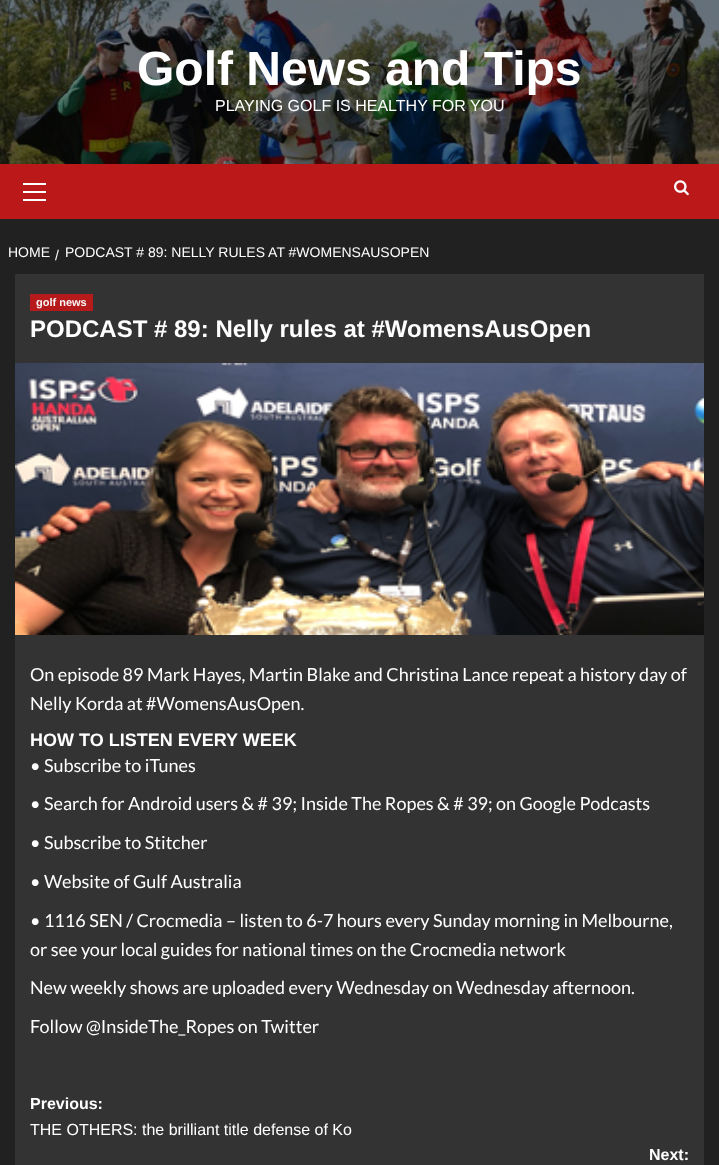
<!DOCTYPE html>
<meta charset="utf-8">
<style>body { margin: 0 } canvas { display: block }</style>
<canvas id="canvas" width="719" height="1165"></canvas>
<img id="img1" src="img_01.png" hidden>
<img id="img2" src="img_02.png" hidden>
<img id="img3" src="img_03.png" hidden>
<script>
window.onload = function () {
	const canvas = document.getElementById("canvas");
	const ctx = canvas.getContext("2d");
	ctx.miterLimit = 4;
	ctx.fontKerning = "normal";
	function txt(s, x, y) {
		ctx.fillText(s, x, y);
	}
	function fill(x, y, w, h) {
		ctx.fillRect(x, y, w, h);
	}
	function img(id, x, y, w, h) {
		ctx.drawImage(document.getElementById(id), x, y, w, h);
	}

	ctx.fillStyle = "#212121";
	fill(0, 0, 719, 1165);
	img("img1", 0, 0, 719, 164);
	ctx.fillStyle = "#BB1919";
	fill(0, 164, 719, 55);
	ctx.fillStyle = "#FFFFFF";
	fill(23, 191, 23, 2);
	fill(23, 183, 23, 2);
	fill(23, 199, 23, 2);
	img("img2", 674, 180, 15, 16);
	ctx.fillStyle = "#333333";
	fill(15, 274, 689, 891);
	ctx.fillStyle = "#B61A1A";
	fill(30, 294, 63, 17);
	img("img3", 15, 363, 689, 272);
	ctx.font = "bold 48px Liberation Sans";
	ctx.fillStyle = "#FFFFFF";
	txt("Golf News and Tips", 137, 85);
	ctx.font = "16px Liberation Sans";
	txt("PLAYING GOLF IS HEALTHY FOR YOU", 215, 111);
	ctx.font = "14px Liberation Sans";
	txt("HOME", 8, 257);
	txt("/", 55, 260);
	txt("PODCAST # 89: NELLY RULES AT #WOMENSAUSOPEN", 65, 257);
	ctx.font = "bold 11px Liberation Sans";
	ctx.fillStyle = "#F7F7F7";
	txt("golf news", 36, 306);
	ctx.font = "bold 24px Liberation Sans";
	ctx.fillStyle = "#FFFFFF";
	txt("PODCAST # 89: Nelly rules at #WomensAusOpen", 30, 337);
	ctx.font = "18px Lato";
	txt("On episode 89 Mark Hayes, Martin Blake and Christina Lance repeat a history day of", 30, 681);
	txt("Nelly Korda at #WomensAusOpen.", 30, 710);
	ctx.font = "bold 18px Liberation Sans";
	txt("HOW TO LISTEN EVERY WEEK", 30, 746);
	ctx.font = "18px Lato";
	txt("• Subscribe to iTunes", 30, 772);
	txt("• Search for Android users & # 39; Inside The Ropes & # 39; on Google Podcasts", 30, 810);
	txt("• Subscribe to Stitcher", 30, 849);
	txt("• Website of Gulf Australia", 30, 888);
	txt("• 1116 SEN / Crocmedia – listen to 6-7 hours every Sunday morning in Melbourne,", 30, 927);
	txt("or see your local guides for national times on the Crocmedia network", 30, 956);
	txt("New weekly shows are uploaded every Wednesday on Wednesday afternoon.", 30, 994);
	txt("Follow @InsideThe_Ropes on Twitter", 30, 1033);
	ctx.font = "bold 16px Liberation Sans";
	txt("Previous:", 30, 1109);
	ctx.font = "16px Liberation Sans";
	txt("THE OTHERS: the brilliant title defense of Ko", 30, 1135);
	ctx.font = "bold 16px Liberation Sans";
	txt("Next:", 649, 1160);
};
</script>
